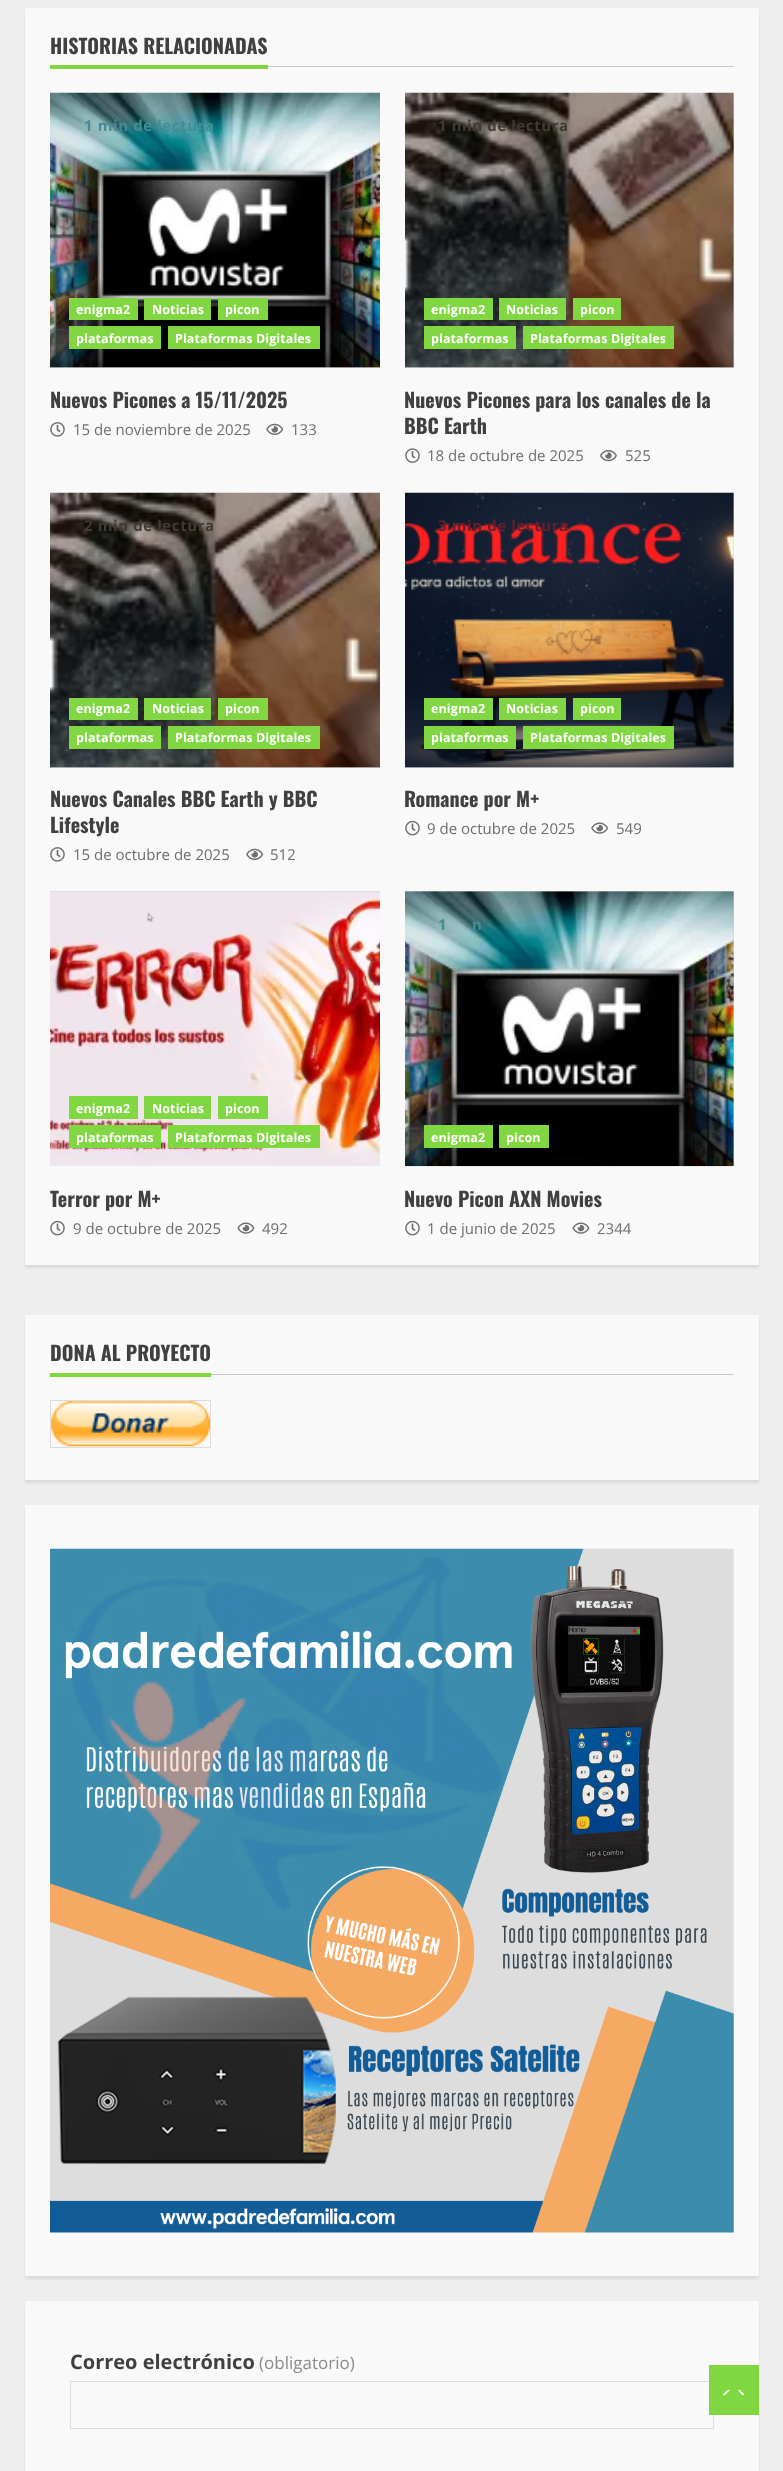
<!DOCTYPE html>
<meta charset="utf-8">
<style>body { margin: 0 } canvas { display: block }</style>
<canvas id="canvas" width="783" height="2471"></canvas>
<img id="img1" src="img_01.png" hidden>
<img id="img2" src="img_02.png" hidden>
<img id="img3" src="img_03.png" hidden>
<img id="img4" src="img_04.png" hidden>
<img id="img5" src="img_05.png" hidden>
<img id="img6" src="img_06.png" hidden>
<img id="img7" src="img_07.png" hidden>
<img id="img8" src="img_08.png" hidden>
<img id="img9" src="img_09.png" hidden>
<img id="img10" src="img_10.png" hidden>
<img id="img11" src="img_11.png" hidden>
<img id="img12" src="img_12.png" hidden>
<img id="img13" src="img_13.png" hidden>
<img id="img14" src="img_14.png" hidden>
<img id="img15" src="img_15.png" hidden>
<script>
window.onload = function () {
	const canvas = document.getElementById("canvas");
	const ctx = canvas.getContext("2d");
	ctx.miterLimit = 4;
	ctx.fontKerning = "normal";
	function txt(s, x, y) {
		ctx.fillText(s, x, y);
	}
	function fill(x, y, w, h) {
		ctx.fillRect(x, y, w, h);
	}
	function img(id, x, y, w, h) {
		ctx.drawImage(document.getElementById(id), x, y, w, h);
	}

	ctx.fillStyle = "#EEEEEE";
	fill(0, 0, 783, 2471);
	ctx.fillStyle = "rgba(0, 0, 0, 0.08)";
	ctx.filter = "blur(1px)";
	ctx.beginPath();
	ctx.rect(25, 10, 734, 1258);
	ctx.fill();
	ctx.filter = "none";
	ctx.fillStyle = "#F9F9F9";
	fill(25, 8, 734, 1257);
	ctx.fillStyle = "#C7C7C7";
	fill(268, 66, 466, 1);
	ctx.fillStyle = "#81D742";
	fill(50, 65, 218, 4);
	ctx.fillStyle = "#CCCCCC";
	fill(50, 367, 330, 1);
	img("img1", 50, 92, 330, 276);
	ctx.fillStyle = "#81D742";
	fill(69, 298, 69, 22);
	fill(144, 298, 67, 22);
	fill(218, 298, 50, 22);
	fill(69, 326, 92, 23);
	fill(168, 326, 152, 23);
	img("img2", 50, 422, 15, 15);
	img("img3", 266, 423, 18, 12);
	ctx.fillStyle = "#CCCCCC";
	fill(405, 93, 329, 275);
	img("img4", 405, 92, 329, 276);
	ctx.fillStyle = "#81D742";
	fill(424, 298, 69, 22);
	fill(499, 298, 67, 22);
	fill(573, 298, 48, 22);
	fill(424, 326, 92, 23);
	fill(523, 326, 151, 23);
	img("img5", 405, 448, 15, 15);
	img("img6", 600, 450, 17, 12);
	ctx.fillStyle = "#CCCCCC";
	fill(50, 767, 330, 1);
	img("img7", 50, 492, 330, 276);
	ctx.fillStyle = "#81D742";
	fill(69, 698, 69, 22);
	fill(144, 698, 67, 22);
	fill(218, 698, 50, 22);
	fill(69, 726, 92, 23);
	fill(168, 726, 152, 23);
	img("img2", 50, 847, 15, 15);
	img("img3", 246, 848, 18, 12);
	ctx.fillStyle = "#CCCCCC";
	fill(405, 493, 329, 275);
	img("img8", 405, 492, 329, 276);
	ctx.fillStyle = "#81D742";
	fill(424, 698, 69, 22);
	fill(499, 698, 67, 22);
	fill(573, 698, 48, 22);
	fill(424, 726, 92, 23);
	fill(523, 726, 151, 23);
	img("img9", 405, 820, 15, 16);
	img("img10", 591, 822, 18, 12);
	ctx.fillStyle = "#CCCCCC";
	fill(50, 891, 330, 1);
	img("img11", 50, 891, 330, 275);
	ctx.fillStyle = "#81D742";
	fill(69, 1096, 69, 23);
	fill(144, 1096, 67, 23);
	fill(218, 1096, 50, 23);
	fill(69, 1125, 92, 23);
	fill(168, 1125, 152, 23);
	img("img9", 50, 1220, 15, 16);
	img("img12", 237, 1222, 18, 12);
	ctx.fillStyle = "#CCCCCC";
	fill(405, 891, 329, 275);
	img("img13", 405, 891, 329, 276);
	ctx.fillStyle = "#81D742";
	fill(424, 1125, 69, 23);
	fill(499, 1125, 50, 23);
	img("img9", 405, 1220, 15, 16);
	img("img12", 572, 1222, 18, 12);
	ctx.fillStyle = "rgba(0, 0, 0, 0.08)";
	ctx.filter = "blur(1px)";
	ctx.beginPath();
	ctx.rect(25, 1318, 734, 165);
	ctx.fill();
	ctx.filter = "none";
	ctx.fillStyle = "#F9F9F9";
	fill(25, 1315, 734, 165);
	ctx.fillStyle = "#C7C7C7";
	fill(211, 1374, 523, 1);
	ctx.fillStyle = "#81D742";
	fill(50, 1373, 161, 4);
	ctx.strokeStyle = "#DCDCDC";
	ctx.strokeRect(50.5, 1400.5, 160, 47);
	img("img14", 51, 1401, 159, 46);
	ctx.fillStyle = "rgba(0, 0, 0, 0.08)";
	ctx.filter = "blur(1px)";
	ctx.beginPath();
	ctx.rect(25, 1508, 734, 771);
	ctx.fill();
	ctx.filter = "none";
	ctx.fillStyle = "#F9F9F9";
	fill(25, 1505, 734, 771);
	img("img15", 50, 1548, 684, 685);
	ctx.fillStyle = "rgba(0, 0, 0, 0.08)";
	ctx.filter = "blur(1px)";
	ctx.beginPath();
	ctx.rect(25, 2304, 734, 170);
	ctx.fill();
	ctx.filter = "none";
	ctx.fillStyle = "#F9F9F9";
	fill(25, 2301, 734, 170);
	ctx.strokeRect(70.5, 2381.5, 643, 47);
	ctx.fillStyle = "#81D742";
	fill(709, 2365, 50, 50);
	ctx.fillStyle = "#FFFFFF";
	ctx.beginPath();
	ctx.moveTo(744.5, 2394.5);
	ctx.bezierCurveTo(741.5, 2397, 737, 2396, 734, 2396);
	ctx.bezierCurveTo(730.5, 2396, 726, 2397, 723, 2394.5);
	ctx.lineTo(727.5, 2390);
	ctx.lineTo(740, 2390);
	ctx.closePath();
	ctx.fill();
	ctx.fillStyle = "#81D742";
	ctx.beginPath();
	ctx.moveTo(746, 2399);
	ctx.lineTo(721, 2399);
	ctx.lineTo(734, 2386);
	ctx.closePath();
	ctx.fill();
	ctx.font = "bold 20px Oswald";
	ctx.fillStyle = "#404040";
	txt("HISTORIAS RELACIONADAS", 50, 54);
	ctx.letterSpacing = "0.6px";
	ctx.font = "bold 15px Open Sans";
	ctx.fillStyle = "#468C93";
	txt("1 min de lectura", 84, 131);
	ctx.letterSpacing = "0.1px";
	ctx.font = "bold 12.5px Open Sans";
	ctx.fillStyle = "#FFFFFF";
	txt("enigma2", 76, 314);
	txt("Noticias", 152, 314);
	txt("picon", 225, 314);
	txt("plataformas", 76, 343);
	txt("Plataformas Digitales", 175, 343);
	ctx.letterSpacing = "0px";
	ctx.font = "bold 20px Oswald";
	ctx.fillStyle = "#404040";
	txt("Nuevos Picones a 15/11/2025", 50, 408);
	ctx.font = "15px Open Sans";
	ctx.fillStyle = "#6E6E6E";
	txt("15 de noviembre de 2025", 73, 435);
	txt("133", 291, 435);
	ctx.letterSpacing = "0.6px";
	ctx.font = "bold 15px Open Sans";
	ctx.fillStyle = "#403934";
	txt("1 min de lectura", 438, 131);
	ctx.letterSpacing = "0.1px";
	ctx.font = "bold 12.5px Open Sans";
	ctx.fillStyle = "#FFFFFF";
	txt("enigma2", 431, 314);
	txt("Noticias", 506, 314);
	txt("picon", 580, 314);
	txt("plataformas", 431, 343);
	txt("Plataformas Digitales", 530, 343);
	ctx.letterSpacing = "0px";
	ctx.font = "bold 20px Oswald";
	ctx.fillStyle = "#404040";
	txt("Nuevos Picones para los canales de la", 404, 408);
	txt("BBC Earth", 404, 434);
	ctx.font = "15px Open Sans";
	ctx.fillStyle = "#6E6E6E";
	txt("18 de octubre de 2025", 427, 461);
	txt("525", 625, 461);
	ctx.letterSpacing = "0.6px";
	ctx.font = "bold 15px Open Sans";
	ctx.fillStyle = "#403934";
	txt("2 min de lectura", 84, 531);
	ctx.letterSpacing = "0.1px";
	ctx.font = "bold 12.5px Open Sans";
	ctx.fillStyle = "#FFFFFF";
	txt("enigma2", 76, 713);
	txt("Noticias", 152, 713);
	txt("picon", 225, 713);
	txt("plataformas", 76, 742);
	txt("Plataformas Digitales", 175, 742);
	ctx.letterSpacing = "0px";
	ctx.font = "bold 20px Oswald";
	ctx.fillStyle = "#404040";
	txt("Nuevos Canales BBC Earth y BBC", 50, 807);
	txt("Lifestyle", 50, 833);
	ctx.font = "15px Open Sans";
	ctx.fillStyle = "#6E6E6E";
	txt("15 de octubre de 2025", 73, 860);
	txt("512", 270, 860);
	ctx.letterSpacing = "0.6px";
	ctx.font = "bold 15px Open Sans";
	ctx.fillStyle = "#64202D";
	txt("3 min de lectura", 438, 531);
	ctx.letterSpacing = "0.1px";
	ctx.font = "bold 12.5px Open Sans";
	ctx.fillStyle = "#FFFFFF";
	txt("enigma2", 431, 713);
	txt("Noticias", 506, 713);
	txt("picon", 580, 713);
	txt("plataformas", 431, 742);
	txt("Plataformas Digitales", 530, 742);
	ctx.letterSpacing = "0px";
	ctx.font = "bold 20px Oswald";
	ctx.fillStyle = "#404040";
	txt("Romance por M+", 404, 807);
	ctx.font = "15px Open Sans";
	ctx.fillStyle = "#6E6E6E";
	txt("9 de octubre de 2025", 427, 834);
	txt("549", 616, 834);
	ctx.letterSpacing = "0.1px";
	ctx.font = "bold 12.5px Open Sans";
	ctx.fillStyle = "#FFFFFF";
	txt("enigma2", 76, 1113);
	txt("Noticias", 152, 1113);
	txt("picon", 225, 1113);
	txt("plataformas", 76, 1142);
	txt("Plataformas Digitales", 175, 1142);
	ctx.letterSpacing = "0px";
	ctx.font = "bold 20px Oswald";
	ctx.fillStyle = "#404040";
	txt("Terror por M+", 50, 1207);
	ctx.font = "15px Open Sans";
	ctx.fillStyle = "#6E6E6E";
	txt("9 de octubre de 2025", 73, 1234);
	txt("492", 262, 1234);
	ctx.letterSpacing = "0.6px";
	ctx.font = "bold 15px Open Sans";
	ctx.fillStyle = "#468C93";
	txt("1", 438, 930);
	txt("n", 472, 930);
	ctx.letterSpacing = "0.1px";
	ctx.font = "bold 12.5px Open Sans";
	ctx.fillStyle = "#FFFFFF";
	txt("enigma2", 431, 1142);
	txt("picon", 506, 1142);
	ctx.letterSpacing = "0px";
	ctx.font = "bold 20px Oswald";
	ctx.fillStyle = "#404040";
	txt("Nuevo Picon AXN Movies", 404, 1207);
	ctx.font = "15px Open Sans";
	ctx.fillStyle = "#6E6E6E";
	txt("1 de junio de 2025", 427, 1234);
	txt("2344", 597, 1234);
	ctx.font = "bold 20px Oswald";
	ctx.fillStyle = "#404040";
	txt("DONA AL PROYECTO", 50, 1361);
	ctx.font = "bold 20px Open Sans";
	txt("Correo electrónico", 70, 2369);
	ctx.font = "17px Open Sans";
	ctx.fillStyle = "#8A8A8A";
	txt("(obligatorio)", 259, 2369);
};
</script>
